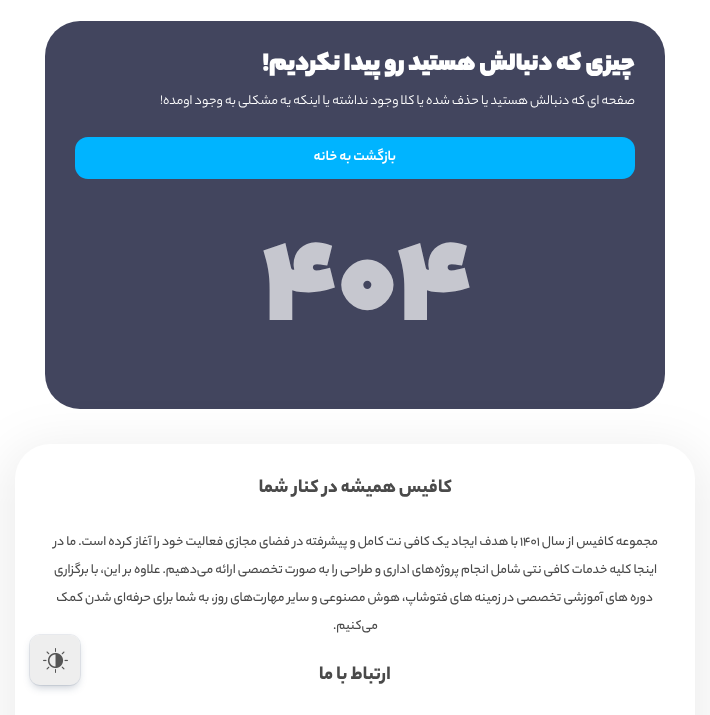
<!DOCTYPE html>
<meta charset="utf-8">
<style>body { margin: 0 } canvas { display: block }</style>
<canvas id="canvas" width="710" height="715"></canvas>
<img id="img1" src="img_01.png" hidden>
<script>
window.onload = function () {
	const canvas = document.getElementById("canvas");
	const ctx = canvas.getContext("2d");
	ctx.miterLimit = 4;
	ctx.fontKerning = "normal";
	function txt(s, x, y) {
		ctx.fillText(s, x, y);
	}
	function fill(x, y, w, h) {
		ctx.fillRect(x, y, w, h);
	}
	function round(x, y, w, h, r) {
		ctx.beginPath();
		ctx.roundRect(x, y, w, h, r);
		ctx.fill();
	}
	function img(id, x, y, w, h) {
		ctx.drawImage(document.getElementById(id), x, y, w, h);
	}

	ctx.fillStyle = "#FFFFFF";
	fill(0, 0, 710, 715);
	ctx.fillStyle = "#42455E";
	round(45, 21, 620, 388, 35);
	ctx.fillStyle = "#00B4FF";
	round(75, 137, 560, 42, 13);
	ctx.fillStyle = "rgba(0, 0, 0, 0.07)";
	ctx.filter = "blur(25px)";
	ctx.beginPath();
	ctx.roundRect(5, 446, 700, 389, 45);
	ctx.fill();
	ctx.filter = "none";
	ctx.fillStyle = "#FFFFFF";
	round(15, 444, 680, 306, 35);
	ctx.beginPath();
	ctx.roundRect(29.5, 634.5, 51, 51, 10.5);
	ctx.strokeStyle = "#EBEDF0";
	ctx.stroke();
	ctx.fillStyle = "rgba(9, 30, 66, 0.25)";
	ctx.filter = "blur(4px)";
	ctx.beginPath();
	ctx.roundRect(32, 641, 46, 46, 8);
	ctx.fill();
	ctx.filter = "none";
	ctx.fillStyle = "#EEEEEE";
	round(30, 635, 50, 50, 10);
	img("img1", 43, 648, 25, 25);
	ctx.wordSpacing = "0.5px";
	ctx.direction = "rtl";
	ctx.font = "900 27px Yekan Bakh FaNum";
	ctx.fillStyle = "#FFFFFF";
	txt("چیزی که دنبالش هستید رو پیدا نکردیم!", 635, 70);
	ctx.wordSpacing = "0px";
	ctx.font = "14px Yekan Bakh FaNum";
	txt("صفحه ای که دنبالش هستید یا حذف شده یا کلا وجود نداشته یا اینکه یه مشکلی به وجود اومده!", 635, 104);
	ctx.font = "bold 15px Yekan Bakh FaNum";
	txt("بازگشت به خانه", 396, 160);
	ctx.direction = "ltr";
	ctx.font = "900 125px Yekan Bakh FaNum";
	ctx.fillStyle = "#C6C7CF";
	txt("404", 262, 313);
	ctx.direction = "rtl";
	ctx.font = "900 20px 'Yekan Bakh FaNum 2'";
	ctx.fillStyle = "#4A4A4A";
	txt("کافیس همیشه در کنار شما", 452, 492);
	ctx.font = "500 14px Yekan Bakh FaNum";
	txt("مجموعه کافیس از سال", 658, 545);
	ctx.direction = "ltr";
	txt("۱۴۰۱", 520, 545);
	ctx.direction = "rtl";
	txt("با هدف ایجاد یک کافی نت کامل و پیشرفته در فضای مجازی فعالیت خود را آغاز کرده است. ما در", 518, 545);
	txt("اینجا کلیه خدمات کافی نتی شامل انجام پروژه‌های اداری و طراحی را به صورت تخصصی ارائه می‌دهیم. علاوه بر این، با برگزاری", 657, 573);
	txt("دوره های آموزشی تخصصی در زمینه های فتوشاپ، هوش مصنوعی و سایر مهارت‌های روز، به شما برای حرفه‌ای شدن کمک", 653, 601);
	txt("می‌کنیم.", 378, 629);
	ctx.font = "900 20px 'Yekan Bakh FaNum 2'";
	txt("ارتباط با ما", 391, 679);
};
</script>
